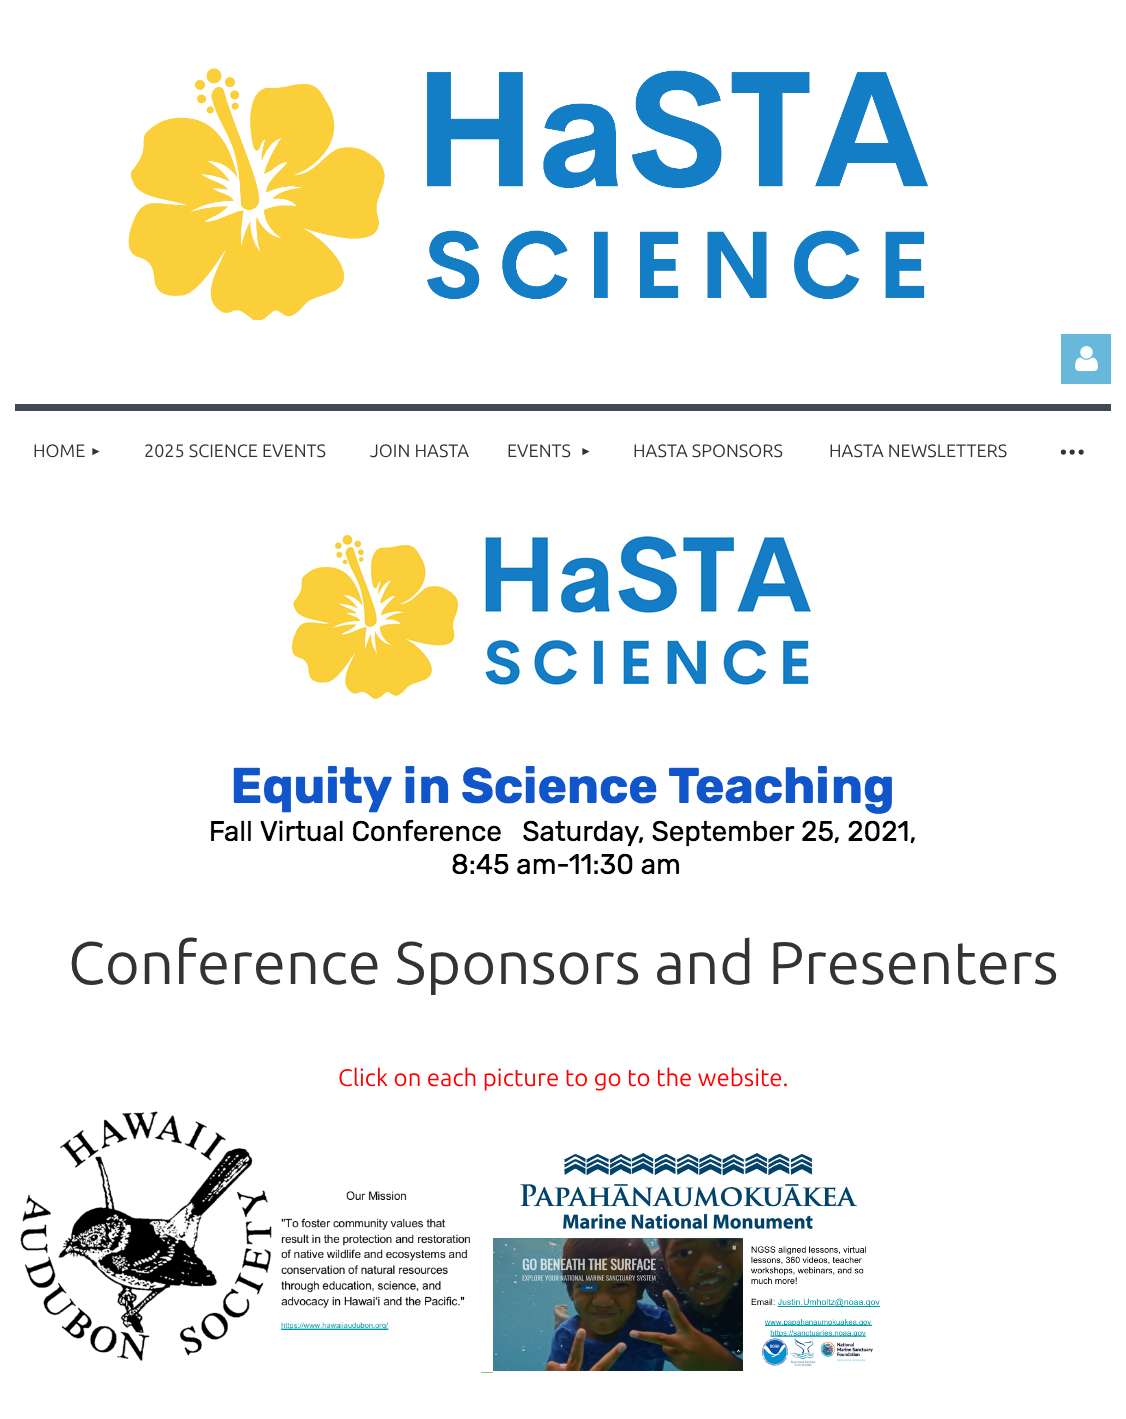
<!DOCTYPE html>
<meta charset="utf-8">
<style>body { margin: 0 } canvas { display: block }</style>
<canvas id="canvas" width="1126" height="1419"></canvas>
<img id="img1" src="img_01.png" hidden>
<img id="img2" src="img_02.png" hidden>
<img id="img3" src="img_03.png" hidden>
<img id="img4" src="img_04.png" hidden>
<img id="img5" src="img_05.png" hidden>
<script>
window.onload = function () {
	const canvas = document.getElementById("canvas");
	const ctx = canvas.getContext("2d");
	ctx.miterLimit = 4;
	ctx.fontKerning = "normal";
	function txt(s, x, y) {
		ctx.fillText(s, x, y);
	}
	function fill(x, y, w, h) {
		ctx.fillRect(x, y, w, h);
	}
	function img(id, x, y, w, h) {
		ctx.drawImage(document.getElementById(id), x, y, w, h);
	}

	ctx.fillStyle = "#FFFFFF";
	fill(0, 0, 1126, 1419);
	img("img1", 128, 68, 800, 252);
	ctx.fillStyle = "#67B8DB";
	fill(1061, 334, 50, 50);
	img("img2", 1075, 346, 23, 26);
	ctx.fillStyle = "#414A53";
	fill(15, 404, 1096, 7);
	img("img3", 210, 534, 705, 341);
	img("img4", 20, 1111, 450, 250);
	img("img5", 493, 1152, 388, 219);
	ctx.fillStyle = "#87C97F";
	fill(481, 1372, 12, 1);
	ctx.font = "18px Ubuntu";
	ctx.fillStyle = "#333333";
	txt("HOME", 33, 457);
	ctx.font = "12px Liberation Sans";
	txt("►", 90, 455);
	ctx.font = "18px Ubuntu";
	txt("2025 SCIENCE EVENTS", 144, 457);
	txt("JOIN HASTA", 370, 457);
	txt("EVENTS", 507, 457);
	ctx.font = "12px Liberation Sans";
	txt("►", 580, 455);
	ctx.font = "18px Ubuntu";
	txt("HASTA SPONSORS", 633, 457);
	txt("HASTA NEWSLETTERS", 829, 457);
	ctx.letterSpacing = "-2px";
	ctx.font = "44px Ubuntu";
	txt("···", 1058, 465);
	ctx.letterSpacing = "0px";
	ctx.font = "60px Ubuntu";
	txt("Conference Sponsors and Presenters", 68, 984);
	ctx.font = "24px Ubuntu";
	ctx.fillStyle = "#FF0000";
	txt("Click on each picture to go to the website.", 338, 1086);
};
</script>
